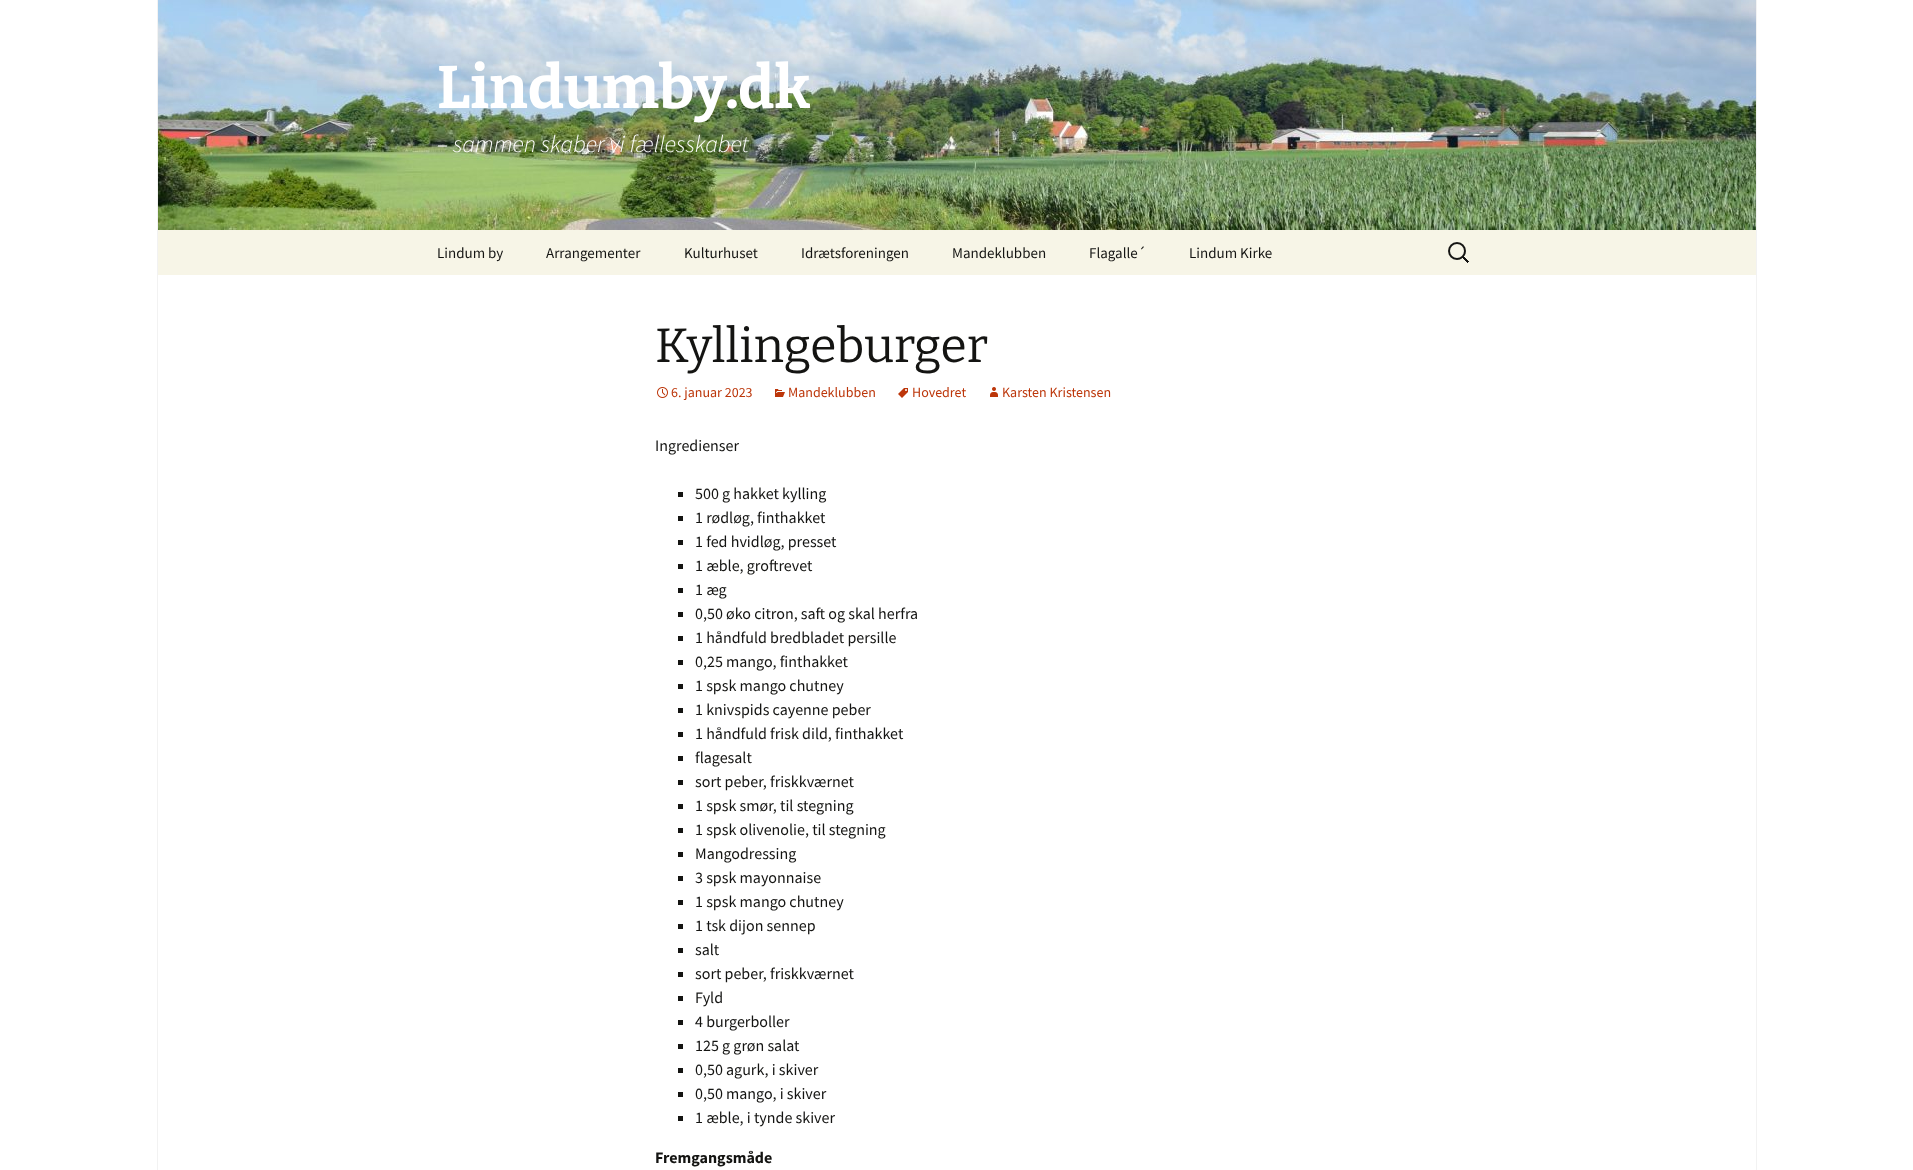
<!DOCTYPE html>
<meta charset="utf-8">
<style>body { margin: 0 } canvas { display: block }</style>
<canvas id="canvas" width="1913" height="1170"></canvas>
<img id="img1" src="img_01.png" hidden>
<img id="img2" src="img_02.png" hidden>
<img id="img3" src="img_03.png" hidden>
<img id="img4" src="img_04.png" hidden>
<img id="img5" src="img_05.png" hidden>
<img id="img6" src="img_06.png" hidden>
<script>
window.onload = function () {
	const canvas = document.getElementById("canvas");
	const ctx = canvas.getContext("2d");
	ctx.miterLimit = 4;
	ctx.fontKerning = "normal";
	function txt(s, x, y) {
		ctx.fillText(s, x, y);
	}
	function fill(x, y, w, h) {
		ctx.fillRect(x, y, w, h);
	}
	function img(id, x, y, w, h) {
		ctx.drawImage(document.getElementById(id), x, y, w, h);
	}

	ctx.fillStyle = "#FFFFFF";
	fill(0, 0, 1913, 1170);
	ctx.fillStyle = "#F2F2F2";
	fill(1756, 0, 1, 1170);
	fill(157, 0, 1, 1170);
	img("img1", 158, 0, 1598, 230);
	ctx.fillStyle = "#F7F5E7";
	fill(158, 230, 1598, 45);
	img("img2", 1448, 242, 21, 21);
	img("img3", 657, 387, 11, 11);
	img("img4", 775, 389, 10, 8);
	img("img5", 898, 388, 10, 10);
	img("img6", 990, 387, 8, 10);
	ctx.fillStyle = "#141412";
	fill(678, 492, 5, 5);
	fill(678, 516, 5, 5);
	fill(678, 540, 5, 5);
	fill(678, 564, 5, 5);
	fill(678, 588, 5, 5);
	fill(678, 612, 5, 5);
	fill(678, 636, 5, 5);
	fill(678, 660, 5, 5);
	fill(678, 684, 5, 5);
	fill(678, 708, 5, 5);
	fill(678, 732, 5, 5);
	fill(678, 756, 5, 5);
	fill(678, 780, 5, 5);
	fill(678, 804, 5, 5);
	fill(678, 828, 5, 5);
	fill(678, 852, 5, 5);
	fill(678, 876, 5, 5);
	fill(678, 900, 5, 5);
	fill(678, 924, 5, 5);
	fill(678, 948, 5, 5);
	fill(678, 972, 5, 5);
	fill(678, 996, 5, 5);
	fill(678, 1020, 5, 5);
	fill(678, 1044, 5, 5);
	fill(678, 1068, 5, 5);
	fill(678, 1092, 5, 5);
	fill(678, 1116, 5, 5);
	ctx.font = "100 60px Bitter";
	ctx.fillStyle = "#FFFFFF";
	txt("Lindumby.dk", 437, 108);
	ctx.font = "italic 300 24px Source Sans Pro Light";
	txt("– sammen skaber vi fællesskabet", 437, 152);
	ctx.font = "15px Source Sans Pro";
	ctx.fillStyle = "#141412";
	txt("Lindum by", 437, 258);
	txt("Arrangementer", 546, 258);
	txt("Kulturhuset", 684, 258);
	txt("Idrætsforeningen", 801, 258);
	txt("Mandeklubben", 952, 258);
	txt("Flagalle´", 1089, 258);
	txt("Lindum Kirke", 1189, 258);
	ctx.font = "100 48px 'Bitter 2'";
	txt("Kyllingeburger", 655, 362);
	ctx.font = "14px Source Sans Pro";
	ctx.fillStyle = "#BC360A";
	txt("6. januar 2023", 671, 397);
	txt("Mandeklubben", 788, 397);
	txt("Hovedret", 912, 397);
	txt("Karsten Kristensen", 1002, 397);
	ctx.font = "16px Source Sans Pro";
	ctx.fillStyle = "#141412";
	txt("Ingredienser", 655, 451);
	txt("500 g hakket kylling", 695, 499);
	txt("1 rødløg, finthakket", 695, 523);
	txt("1 fed hvidløg, presset", 695, 547);
	txt("1 æble, groftrevet", 695, 571);
	txt("1 æg", 695, 595);
	txt("0,50 øko citron, saft og skal herfra", 695, 619);
	txt("1 håndfuld bredbladet persille", 695, 643);
	txt("0,25 mango, finthakket", 695, 667);
	txt("1 spsk mango chutney", 695, 691);
	txt("1 knivspids cayenne peber", 695, 715);
	txt("1 håndfuld frisk dild, finthakket", 695, 739);
	txt("flagesalt", 695, 763);
	txt("sort peber, friskkværnet", 695, 787);
	txt("1 spsk smør, til stegning", 695, 811);
	txt("1 spsk olivenolie, til stegning", 695, 835);
	txt("Mangodressing", 695, 859);
	txt("3 spsk mayonnaise", 695, 883);
	txt("1 spsk mango chutney", 695, 907);
	txt("1 tsk dijon sennep", 695, 931);
	txt("salt", 695, 955);
	txt("sort peber, friskkværnet", 695, 979);
	txt("Fyld", 695, 1003);
	txt("4 burgerboller", 695, 1027);
	txt("125 g grøn salat", 695, 1051);
	txt("0,50 agurk, i skiver", 695, 1075);
	txt("0,50 mango, i skiver", 695, 1099);
	txt("1 æble, i tynde skiver", 695, 1123);
	ctx.font = "bold 16px Source Sans Pro";
	txt("Fremgangsmåde", 655, 1163);
};
</script>
